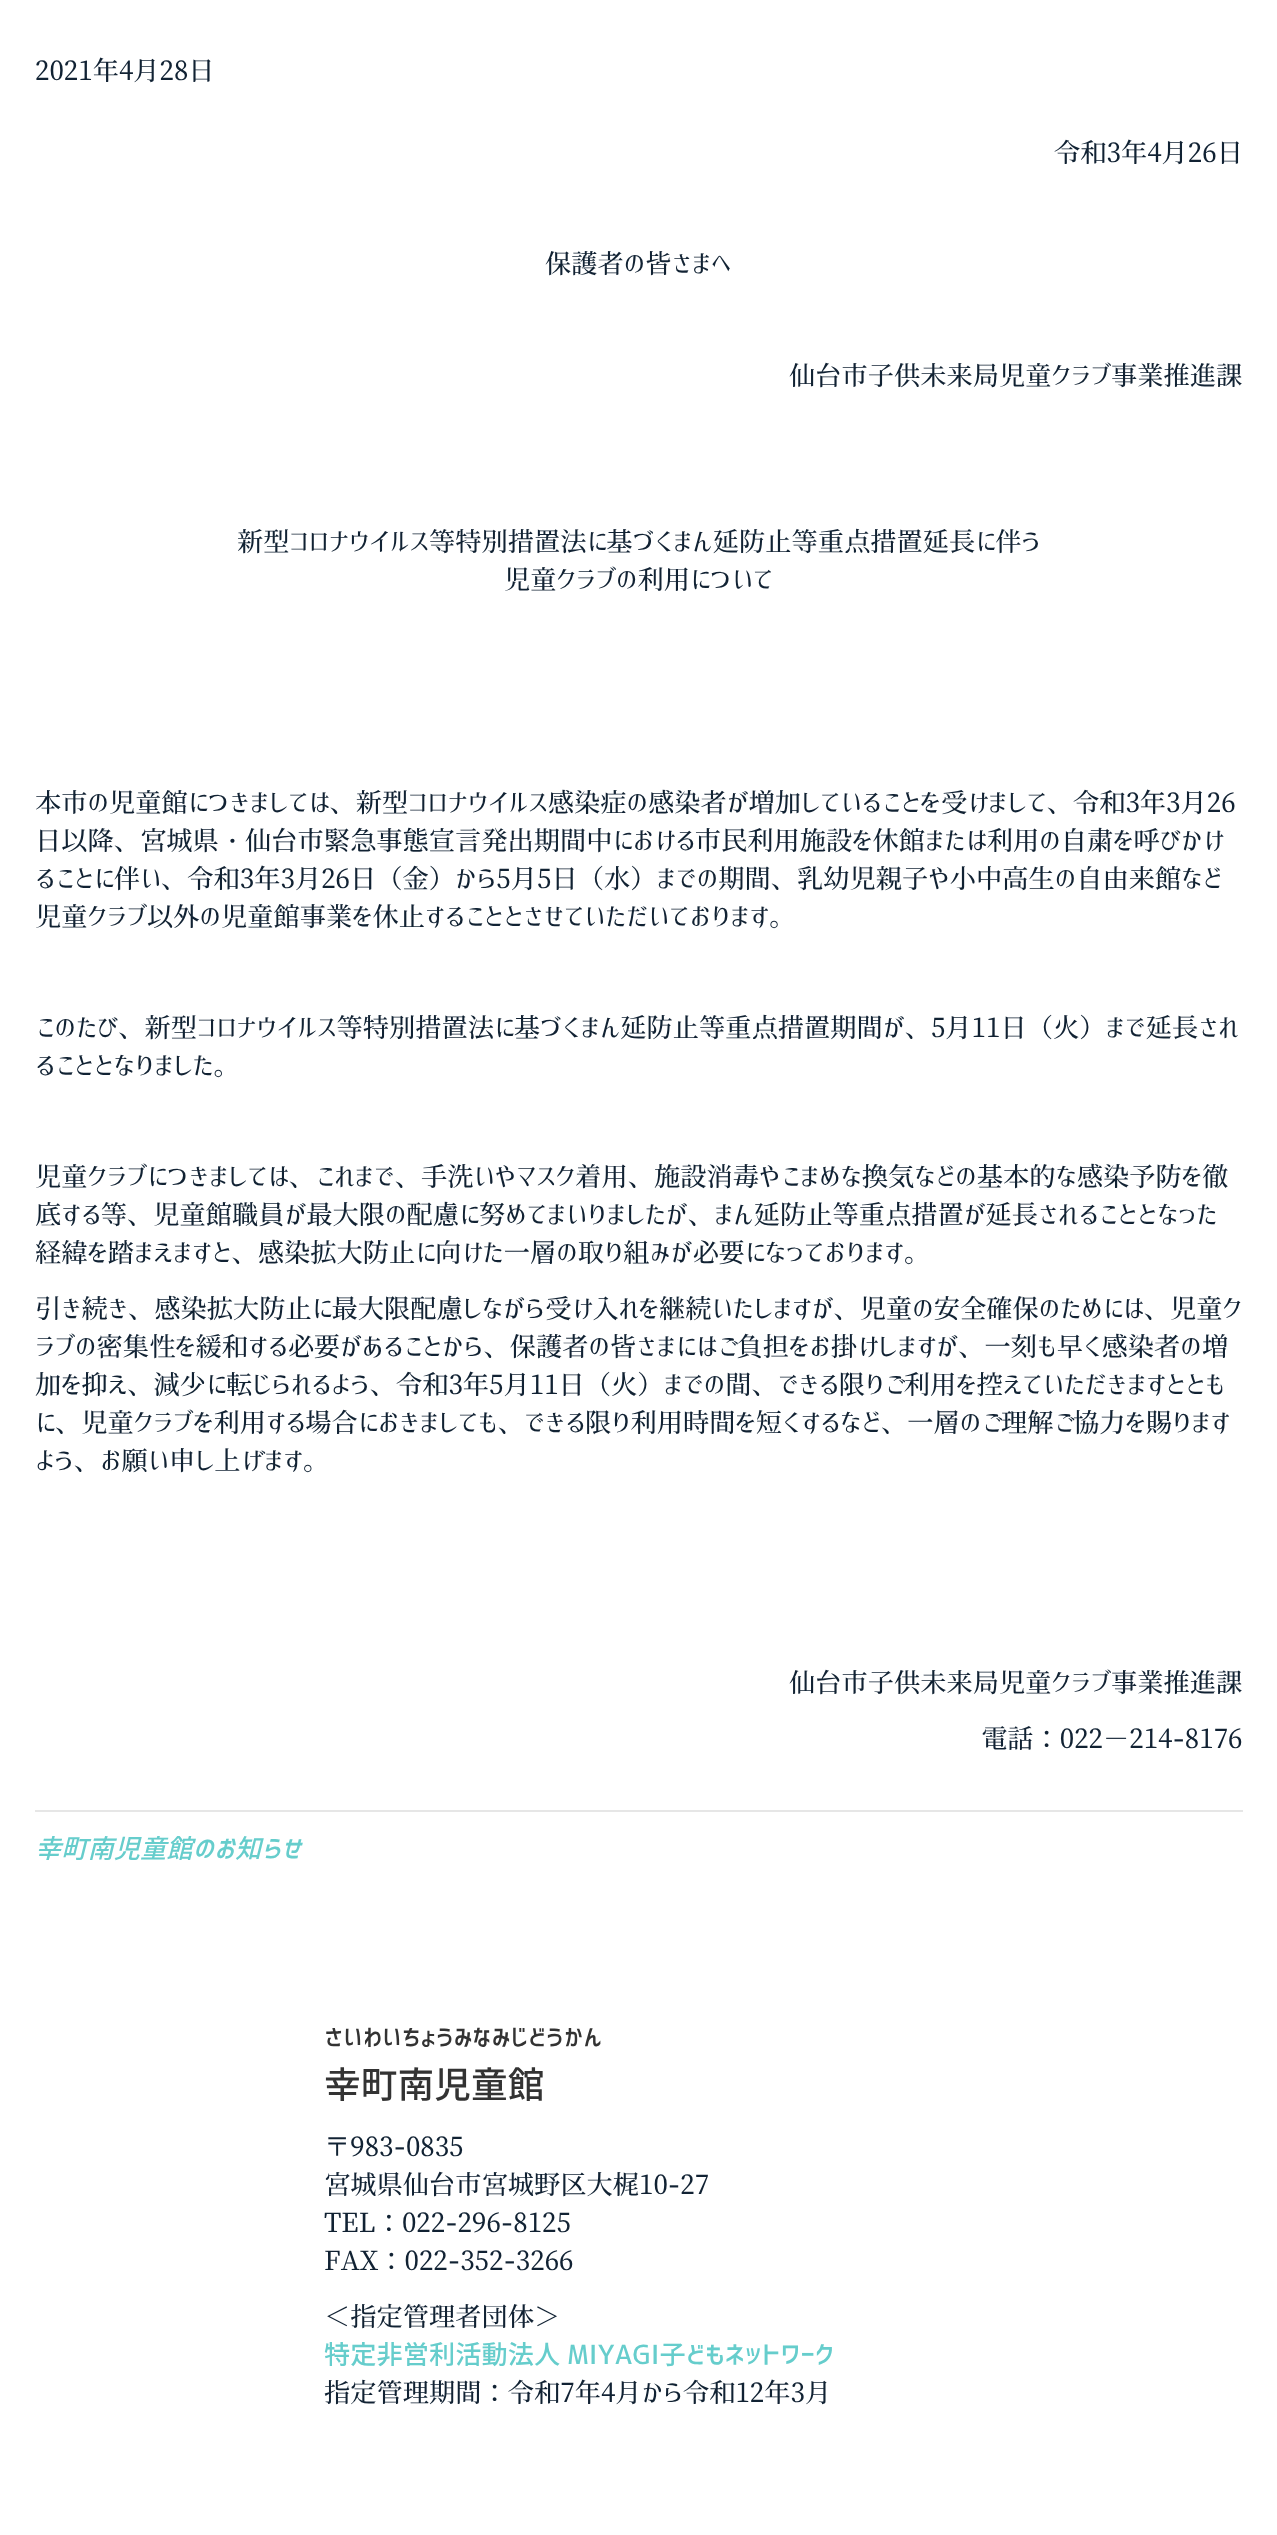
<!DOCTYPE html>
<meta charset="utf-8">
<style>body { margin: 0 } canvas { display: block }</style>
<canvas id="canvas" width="1277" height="2535"></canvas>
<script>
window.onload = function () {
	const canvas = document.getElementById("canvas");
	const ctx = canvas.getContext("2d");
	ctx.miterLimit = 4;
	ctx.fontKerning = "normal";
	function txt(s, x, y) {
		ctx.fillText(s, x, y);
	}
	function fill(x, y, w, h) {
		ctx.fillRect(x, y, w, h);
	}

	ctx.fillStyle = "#FFFFFF";
	fill(0, 0, 1277, 2535);
	ctx.fillStyle = "#E6E6E6";
	fill(35, 1810, 1208, 2);
	ctx.font = "26.25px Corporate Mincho";
	ctx.fillStyle = "#112233";
	txt("2021年4月28日", 35, 80);
	txt("令和3年4月26日", 1054, 162);
	txt("保護者の皆さまへ", 545, 273);
	txt("仙台市子供未来局児童クラブ事業推進課", 789, 385);
	txt("新型コロナウイルス等特別措置法に基づくまん延防止等重点措置延長に伴う", 237, 551);
	txt("児童クラブの利用について", 504, 589);
	txt("本市の児童館につきましては、新型コロナウイルス感染症の感染者が増加していることを受けまして、令和3年3月26", 35, 812);
	txt("日以降、宮城県", 35, 850);
	ctx.font = "500 26.25px WenQuanYi Zen Hei";
	txt("・", 219, 850);
	ctx.font = "26.25px Corporate Mincho";
	txt("仙台市緊急事態宣言発出期間中における市民利用施設を休館または利用の自粛を呼びかけ", 245, 850);
	txt("ることに伴い、令和3年3月26日（金）から5月5日（水）までの期間、乳幼児親子や小中高生の自由来館など", 35, 888);
	txt("児童クラブ以外の児童館事業を休止することとさせていただいております。", 35, 926);
	txt("このたび、新型コロナウイルス等特別措置法に基づくまん延防止等重点措置期間が、5月11日（火）まで延長され", 35, 1037);
	txt("ることとなりました。", 35, 1075);
	txt("児童クラブにつきましては、これまで、手洗いやマスク着用、施設消毒やこまめな換気などの基本的な感染予防を徹", 35, 1186);
	txt("底する等、児童館職員が最大限の配慮に努めてまいりましたが、まん延防止等重点措置が延長されることとなった", 35, 1224);
	txt("経緯を踏まえますと、感染拡大防止に向けた一層の取り組みが必要になっております。", 35, 1262);
	txt("引き続き、感染拡大防止に最大限配慮しながら受け入れを継続いたしますが、児童の安全確保のためには、児童ク", 35, 1318);
	txt("ラブの密集性を緩和する必要があることから、保護者の皆さまにはご負担をお掛けしますが、一刻も早く感染者の増", 35, 1356);
	txt("加を抑え、減少に転じられるよう、令和3年5月11日（火）までの間、できる限りご利用を控えていただきますととも", 35, 1394);
	txt("に、児童クラブを利用する場合におきましても、できる限り利用時間を短くするなど、一層のご理解ご協力を賜ります", 35, 1432);
	txt("よう、お願い申し上げます。", 35, 1470);
	txt("仙台市子供未来局児童クラブ事業推進課", 789, 1692);
	txt("電話：022－214-8176", 981, 1748);
	ctx.font = "italic 500 26.25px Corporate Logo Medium";
	ctx.fillStyle = "#66CDCC";
	txt("幸町南児童館のお知らせ", 35, 1858);
	ctx.font = "500 24.5px Corporate Logo Medium";
	ctx.fillStyle = "#333333";
	txt("さいわいちょうみなみじどうかん", 324, 2046);
	ctx.font = "500 36.75px Corporate Logo Medium";
	txt("幸町南児童館", 324, 2098);
	ctx.font = "26.25px Corporate Mincho";
	ctx.fillStyle = "#112233";
	txt("〒983-0835", 324, 2156);
	txt("宮城県仙台市宮城野区大梶10-27", 324, 2194);
	txt("TEL：022-296-8125", 324, 2232);
	txt("FAX：022-352-3266", 324, 2270);
	txt("＜指定管理者団体＞", 324, 2326);
	ctx.font = "500 26.25px Corporate Logo Medium";
	ctx.fillStyle = "#66CDCC";
	txt("特定非営利活動法人 MIYAGI子どもネットワーク", 324, 2364);
	ctx.font = "26.25px Corporate Mincho";
	ctx.fillStyle = "#112233";
	txt("指定管理期間：令和7年4月から令和12年3月", 324, 2402);
};
</script>
